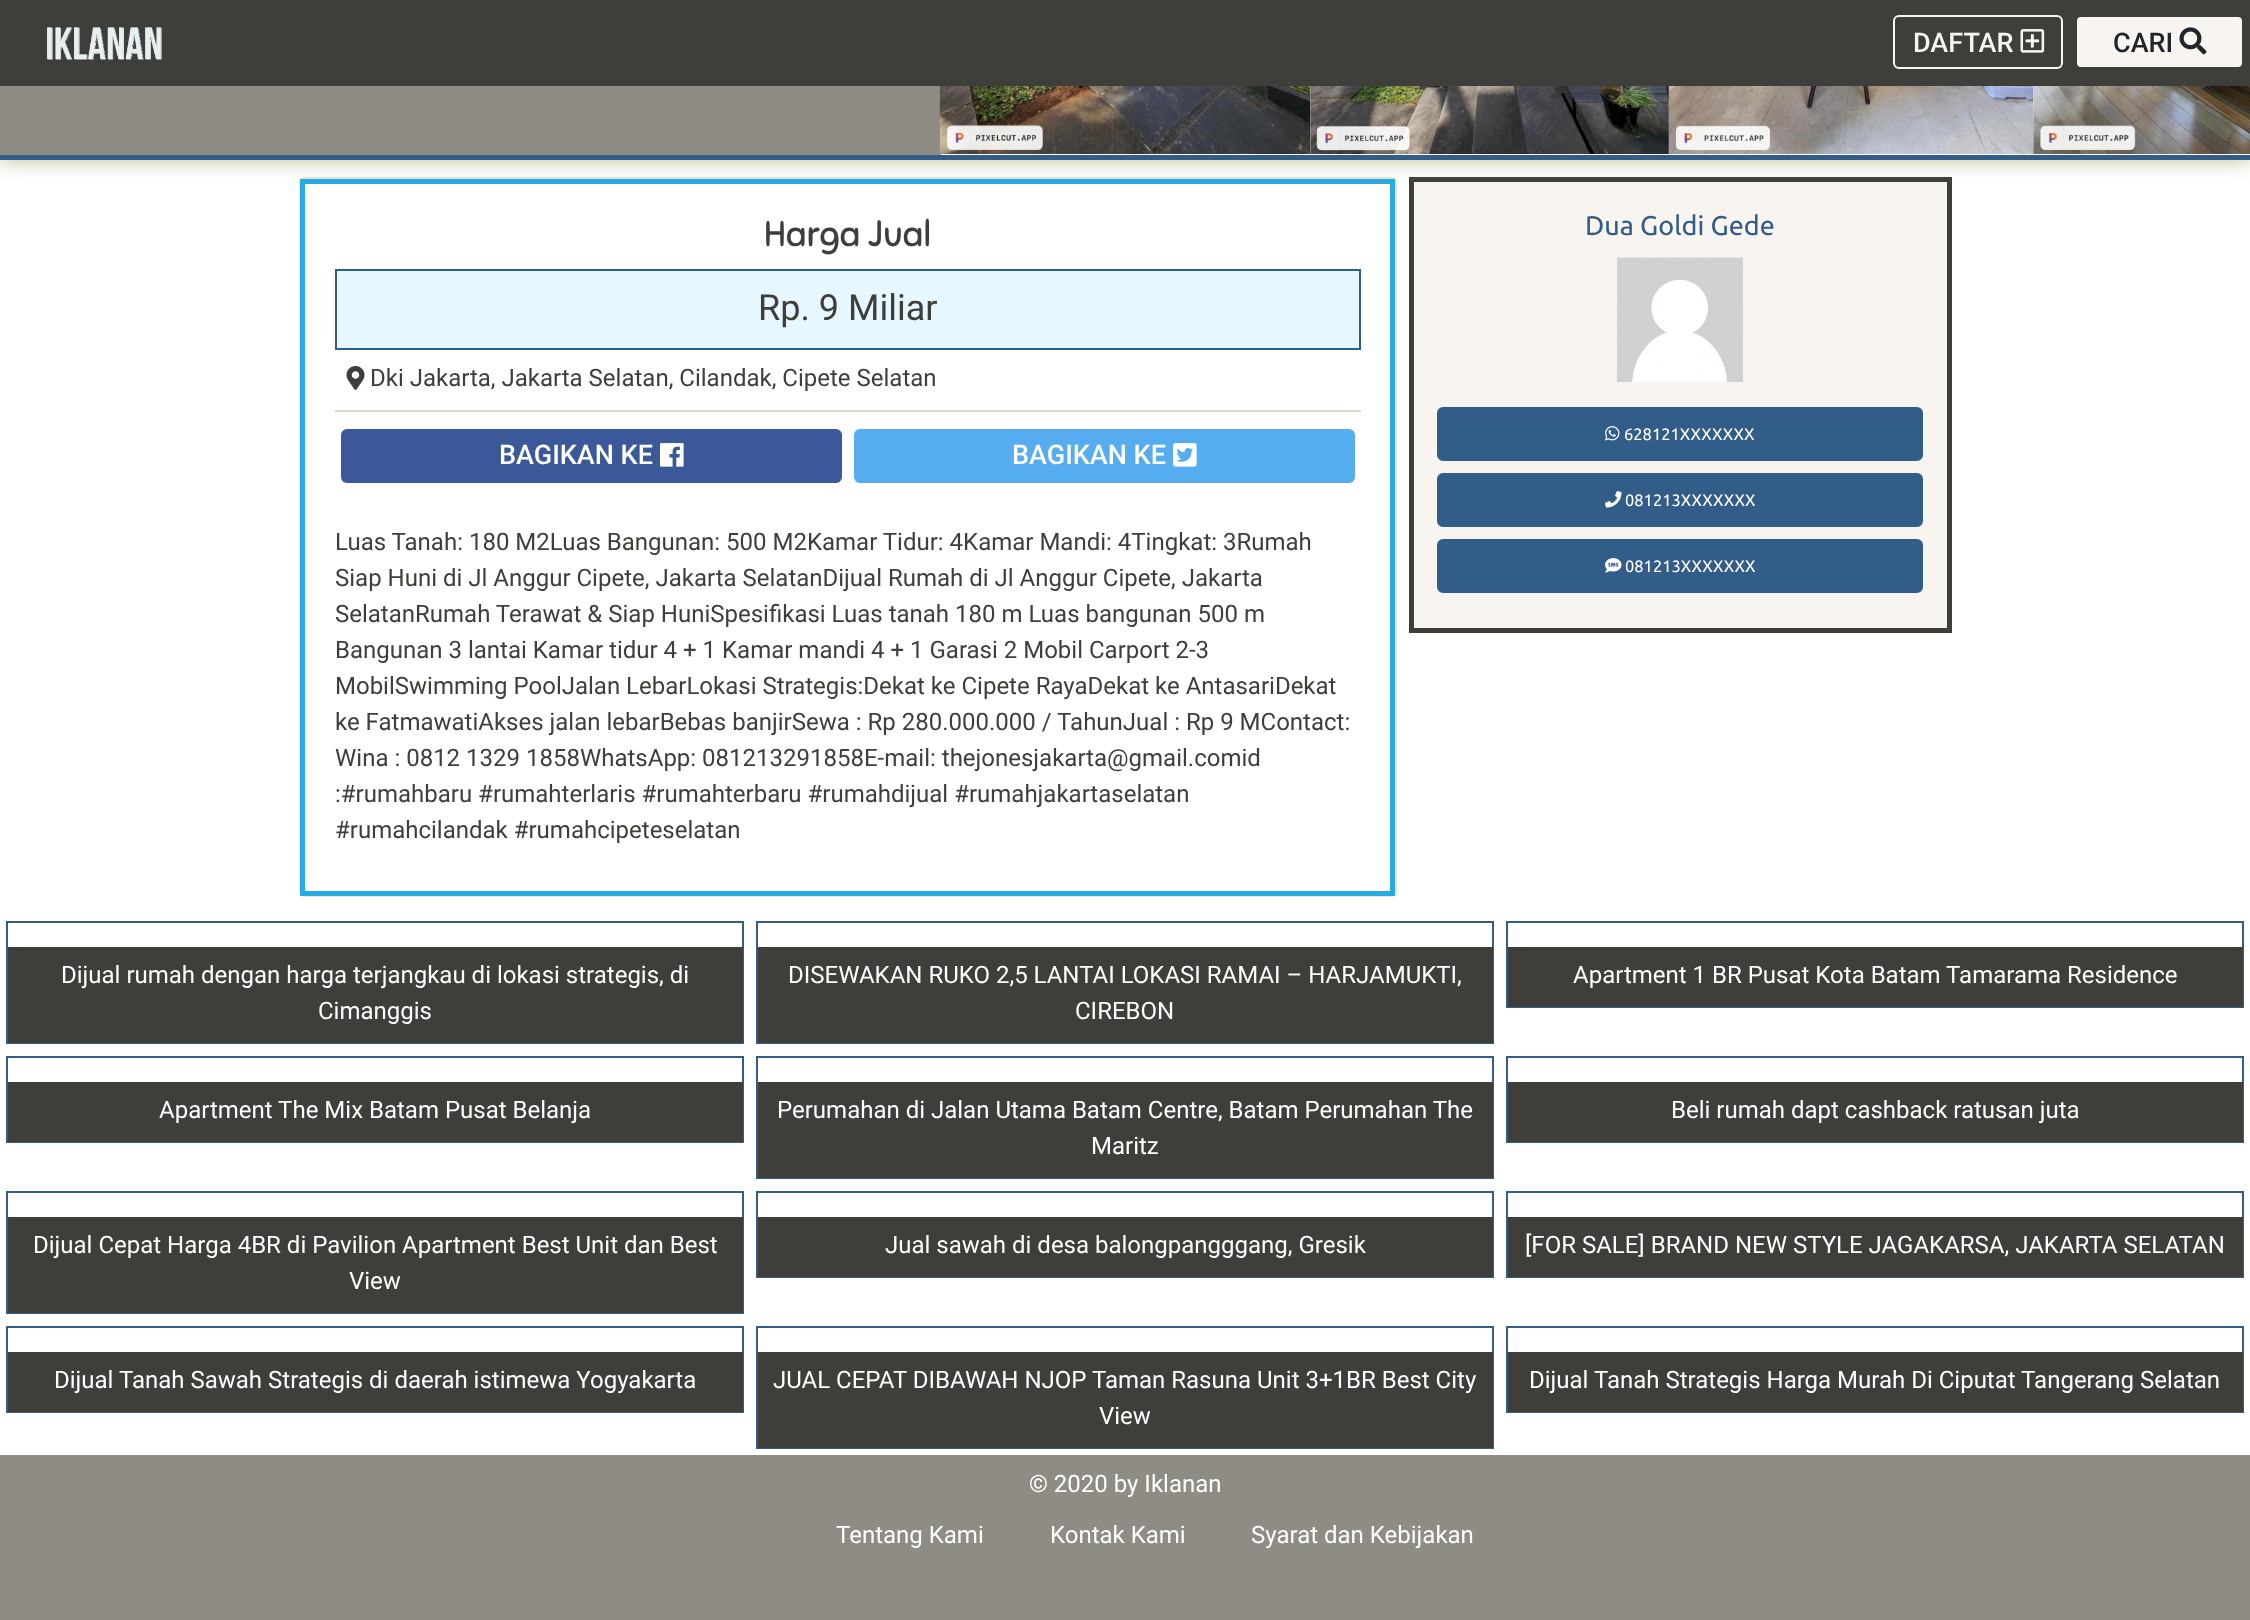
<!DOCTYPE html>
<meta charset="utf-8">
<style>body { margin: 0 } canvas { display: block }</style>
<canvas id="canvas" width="2250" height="1620"></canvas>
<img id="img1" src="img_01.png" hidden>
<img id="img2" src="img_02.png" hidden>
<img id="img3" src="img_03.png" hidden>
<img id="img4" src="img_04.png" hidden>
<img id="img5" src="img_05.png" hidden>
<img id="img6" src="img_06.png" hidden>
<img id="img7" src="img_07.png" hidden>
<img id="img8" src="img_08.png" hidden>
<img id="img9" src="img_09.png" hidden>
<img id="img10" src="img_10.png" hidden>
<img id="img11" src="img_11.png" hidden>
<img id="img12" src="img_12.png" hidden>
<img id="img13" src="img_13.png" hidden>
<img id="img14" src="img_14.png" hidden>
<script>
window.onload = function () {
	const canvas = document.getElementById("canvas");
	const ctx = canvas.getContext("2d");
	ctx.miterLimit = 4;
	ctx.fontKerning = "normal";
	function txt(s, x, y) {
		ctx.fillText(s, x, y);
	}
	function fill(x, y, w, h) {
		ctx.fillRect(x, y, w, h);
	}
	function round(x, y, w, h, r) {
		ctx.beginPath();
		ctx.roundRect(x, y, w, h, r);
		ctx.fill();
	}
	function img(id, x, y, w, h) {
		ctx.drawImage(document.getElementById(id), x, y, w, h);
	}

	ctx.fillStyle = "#FFFFFF";
	fill(0, 0, 2250, 1620);
	ctx.beginPath();
	ctx.roundRect(300, 178, 1096, 718, 5);
	ctx.strokeStyle = "#E7E1D7";
	ctx.lineWidth = 2;
	ctx.stroke();
	ctx.strokeStyle = "#29ABE0";
	ctx.lineWidth = 5;
	ctx.strokeRect(302.5, 181.5, 1090, 712);
	ctx.fillStyle = "#F8F5F0";
	ctx.beginPath();
	ctx.rect(1411.5, 179.5, 538, 451);
	ctx.fill();
	ctx.strokeStyle = "#3E3F3A";
	ctx.stroke();
	ctx.fillStyle = "#B4B57E";
	ctx.filter = "blur(11px)";
	ctx.beginPath();
	ctx.rect(0, -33, 2250, 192);
	ctx.fill();
	ctx.filter = "none";
	ctx.fillStyle = "#3E3F3A";
	fill(0, 0, 2250, 86);
	img("img1", 47, 27, 115, 33);
	ctx.beginPath();
	ctx.roundRect(1894, 16, 168, 52, 5);
	ctx.strokeStyle = "#F8F5F0";
	ctx.lineWidth = 2;
	ctx.stroke();
	img("img2", 2020, 29, 25, 24);
	ctx.fillStyle = "#F8F5F0";
	ctx.beginPath();
	ctx.roundRect(2076, 16, 167, 52, 5);
	ctx.fill();
	ctx.strokeStyle = "#3E3F3A";
	ctx.stroke();
	img("img3", 2179, 27, 28, 28);
	ctx.fillStyle = "#8E8C84";
	fill(0, 86, 941, 69);
	ctx.fillStyle = "#325D88";
	fill(0, 155, 2250, 5);
	ctx.fillStyle = "#FFFFFF";
	fill(941, 86, 1093, 69);
	img("img4", 939, 86, 372, 68);
	img("img5", 1310, 86, 359, 68);
	img("img6", 1668, 86, 366, 68);
	fill(2034, 154, 216, 1);
	img("img7", 2033, 86, 217, 68);
	ctx.fillStyle = "#E6F7FF";
	ctx.beginPath();
	ctx.rect(336, 270, 1024, 79);
	ctx.fill();
	ctx.strokeStyle = "#325D88";
	ctx.stroke();
	ctx.fillStyle = "#DFD7CA";
	fill(335, 410, 1026, 2);
	img("img8", 346, 366, 19, 24);
	ctx.fillStyle = "#3B5998";
	round(341, 429, 501, 54, 6);
	img("img9", 660, 443, 24, 24);
	ctx.fillStyle = "#55ACEE";
	round(854, 429, 501, 54, 6);
	img("img10", 1173, 443, 24, 24);
	img("img11", 1617, 257, 126, 125);
	ctx.fillStyle = "#325D88";
	ctx.beginPath();
	ctx.roundRect(1438, 408, 484, 52, 5);
	ctx.fill();
	ctx.stroke();
	img("img12", 1605, 426, 15, 15);
	ctx.beginPath();
	ctx.roundRect(1438, 474, 484, 52, 5);
	ctx.fill();
	ctx.stroke();
	img("img13", 1605, 491, 17, 17);
	ctx.beginPath();
	ctx.roundRect(1438, 540, 484, 52, 5);
	ctx.fill();
	ctx.stroke();
	img("img14", 1605, 558, 17, 15);
	ctx.strokeRect(7, 922, 736, 121);
	ctx.fillStyle = "#3E3F3A";
	fill(8, 947, 735, 96);
	ctx.strokeRect(757, 922, 736, 121);
	fill(758, 947, 735, 96);
	ctx.strokeRect(1507, 922, 736, 85);
	fill(1508, 947, 735, 60);
	ctx.strokeRect(7, 1057, 736, 85);
	fill(8, 1082, 735, 60);
	ctx.strokeRect(757, 1057, 736, 121);
	fill(758, 1082, 735, 96);
	ctx.strokeRect(1507, 1057, 736, 85);
	fill(1508, 1082, 735, 60);
	ctx.strokeRect(7, 1192, 736, 121);
	fill(8, 1217, 735, 96);
	ctx.strokeRect(757, 1192, 736, 85);
	fill(758, 1217, 735, 60);
	ctx.strokeRect(1507, 1192, 736, 85);
	fill(1508, 1217, 735, 60);
	ctx.strokeRect(7, 1327, 736, 85);
	fill(8, 1352, 735, 60);
	ctx.strokeRect(757, 1327, 736, 121);
	fill(758, 1352, 735, 96);
	ctx.strokeRect(1507, 1327, 736, 85);
	fill(1508, 1352, 735, 60);
	ctx.fillStyle = "#8E8C84";
	fill(0, 1455, 2250, 165);
	ctx.font = "500 27px Roboto";
	ctx.fillStyle = "#F8F5F0";
	txt("DAFTAR", 1913, 52);
	ctx.fillStyle = "#212529";
	txt("CARI", 2113, 52);
	ctx.font = "36px Sniglet";
	ctx.fillStyle = "#3E3F3A";
	txt("Harga Jual", 764, 246);
	ctx.font = "36px Roboto";
	txt("Rp. 9 Miliar", 758, 320);
	ctx.font = "24px Roboto";
	txt("Dki Jakarta, Jakarta Selatan, Cilandak, Cipete Selatan", 370, 386);
	ctx.font = "500 27px Roboto";
	ctx.fillStyle = "#FFFFFF";
	txt("BAGIKAN KE", 499, 464);
	txt("BAGIKAN KE", 1012, 464);
	ctx.font = "24px Roboto";
	ctx.fillStyle = "#3E3F3A";
	txt("Luas Tanah: 180 M2Luas Bangunan: 500 M2Kamar Tidur: 4Kamar Mandi: 4Tingkat: 3Rumah", 335, 550);
	txt("Siap Huni di Jl Anggur Cipete, Jakarta SelatanDijual Rumah di Jl Anggur Cipete, Jakarta", 335, 586);
	txt("SelatanRumah Terawat & Siap HuniSpesifikasi Luas tanah 180 m Luas bangunan 500 m", 335, 622);
	txt("Bangunan 3 lantai Kamar tidur 4 + 1 Kamar mandi 4 + 1 Garasi 2 Mobil Carport 2-3", 335, 658);
	txt("MobilSwimming PoolJalan LebarLokasi Strategis:Dekat ke Cipete RayaDekat ke AntasariDekat", 335, 694);
	txt("ke FatmawatiAkses jalan lebarBebas banjirSewa : Rp 280.000.000 / TahunJual : Rp 9 MContact:", 335, 730);
	txt("Wina : 0812 1329 1858WhatsApp: 081213291858E-mail: thejonesjakarta@gmail.comid", 335, 766);
	txt(":#rumahbaru #rumahterlaris #rumahterbaru #rumahdijual #rumahjakartaselatan", 335, 802);
	txt("#rumahcilandak #rumahcipeteselatan", 335, 838);
	ctx.font = "27px Ubuntu";
	ctx.fillStyle = "#325D88";
	txt("Dua Goldi Gede", 1585, 235);
	ctx.font = "16.5px Ubuntu";
	ctx.fillStyle = "#FFFFFF";
	txt("628121XXXXXXX", 1624, 440);
	txt("081213XXXXXXX", 1625, 506);
	txt("081213XXXXXXX", 1625, 572);
	ctx.font = "24px Roboto";
	txt("Dijual rumah dengan harga terjangkau di lokasi strategis, di", 61, 983);
	txt("Cimanggis", 318, 1019);
	txt("DISEWAKAN RUKO 2,5 LANTAI LOKASI RAMAI – HARJAMUKTI,", 788, 983);
	txt("CIREBON", 1075, 1019);
	txt("Apartment 1 BR Pusat Kota Batam Tamarama Residence", 1573, 983);
	txt("Apartment The Mix Batam Pusat Belanja", 159, 1118);
	txt("Perumahan di Jalan Utama Batam Centre, Batam Perumahan The", 777, 1118);
	txt("Maritz", 1091, 1154);
	txt("Beli rumah dapt cashback ratusan juta", 1671, 1118);
	txt("Dijual Cepat Harga 4BR di Pavilion Apartment Best Unit dan Best", 33, 1253);
	txt("View", 349, 1289);
	txt("Jual sawah di desa balongpangggang, Gresik", 885, 1253);
	txt("[FOR SALE] BRAND NEW STYLE JAGAKARSA, JAKARTA SELATAN", 1525, 1253);
	txt("Dijual Tanah Sawah Strategis di daerah istimewa Yogyakarta", 54, 1388);
	txt("JUAL CEPAT DIBAWAH NJOP Taman Rasuna Unit 3+1BR Best City", 773, 1388);
	txt("View", 1099, 1424);
	txt("Dijual Tanah Strategis Harga Murah Di Ciputat Tangerang Selatan", 1529, 1388);
	txt("© 2020 by Iklanan", 1029, 1492);
	txt("Tentang Kami", 836, 1543);
	txt("Kontak Kami", 1050, 1543);
	txt("Syarat dan Kebijakan", 1251, 1543);
};
</script>
